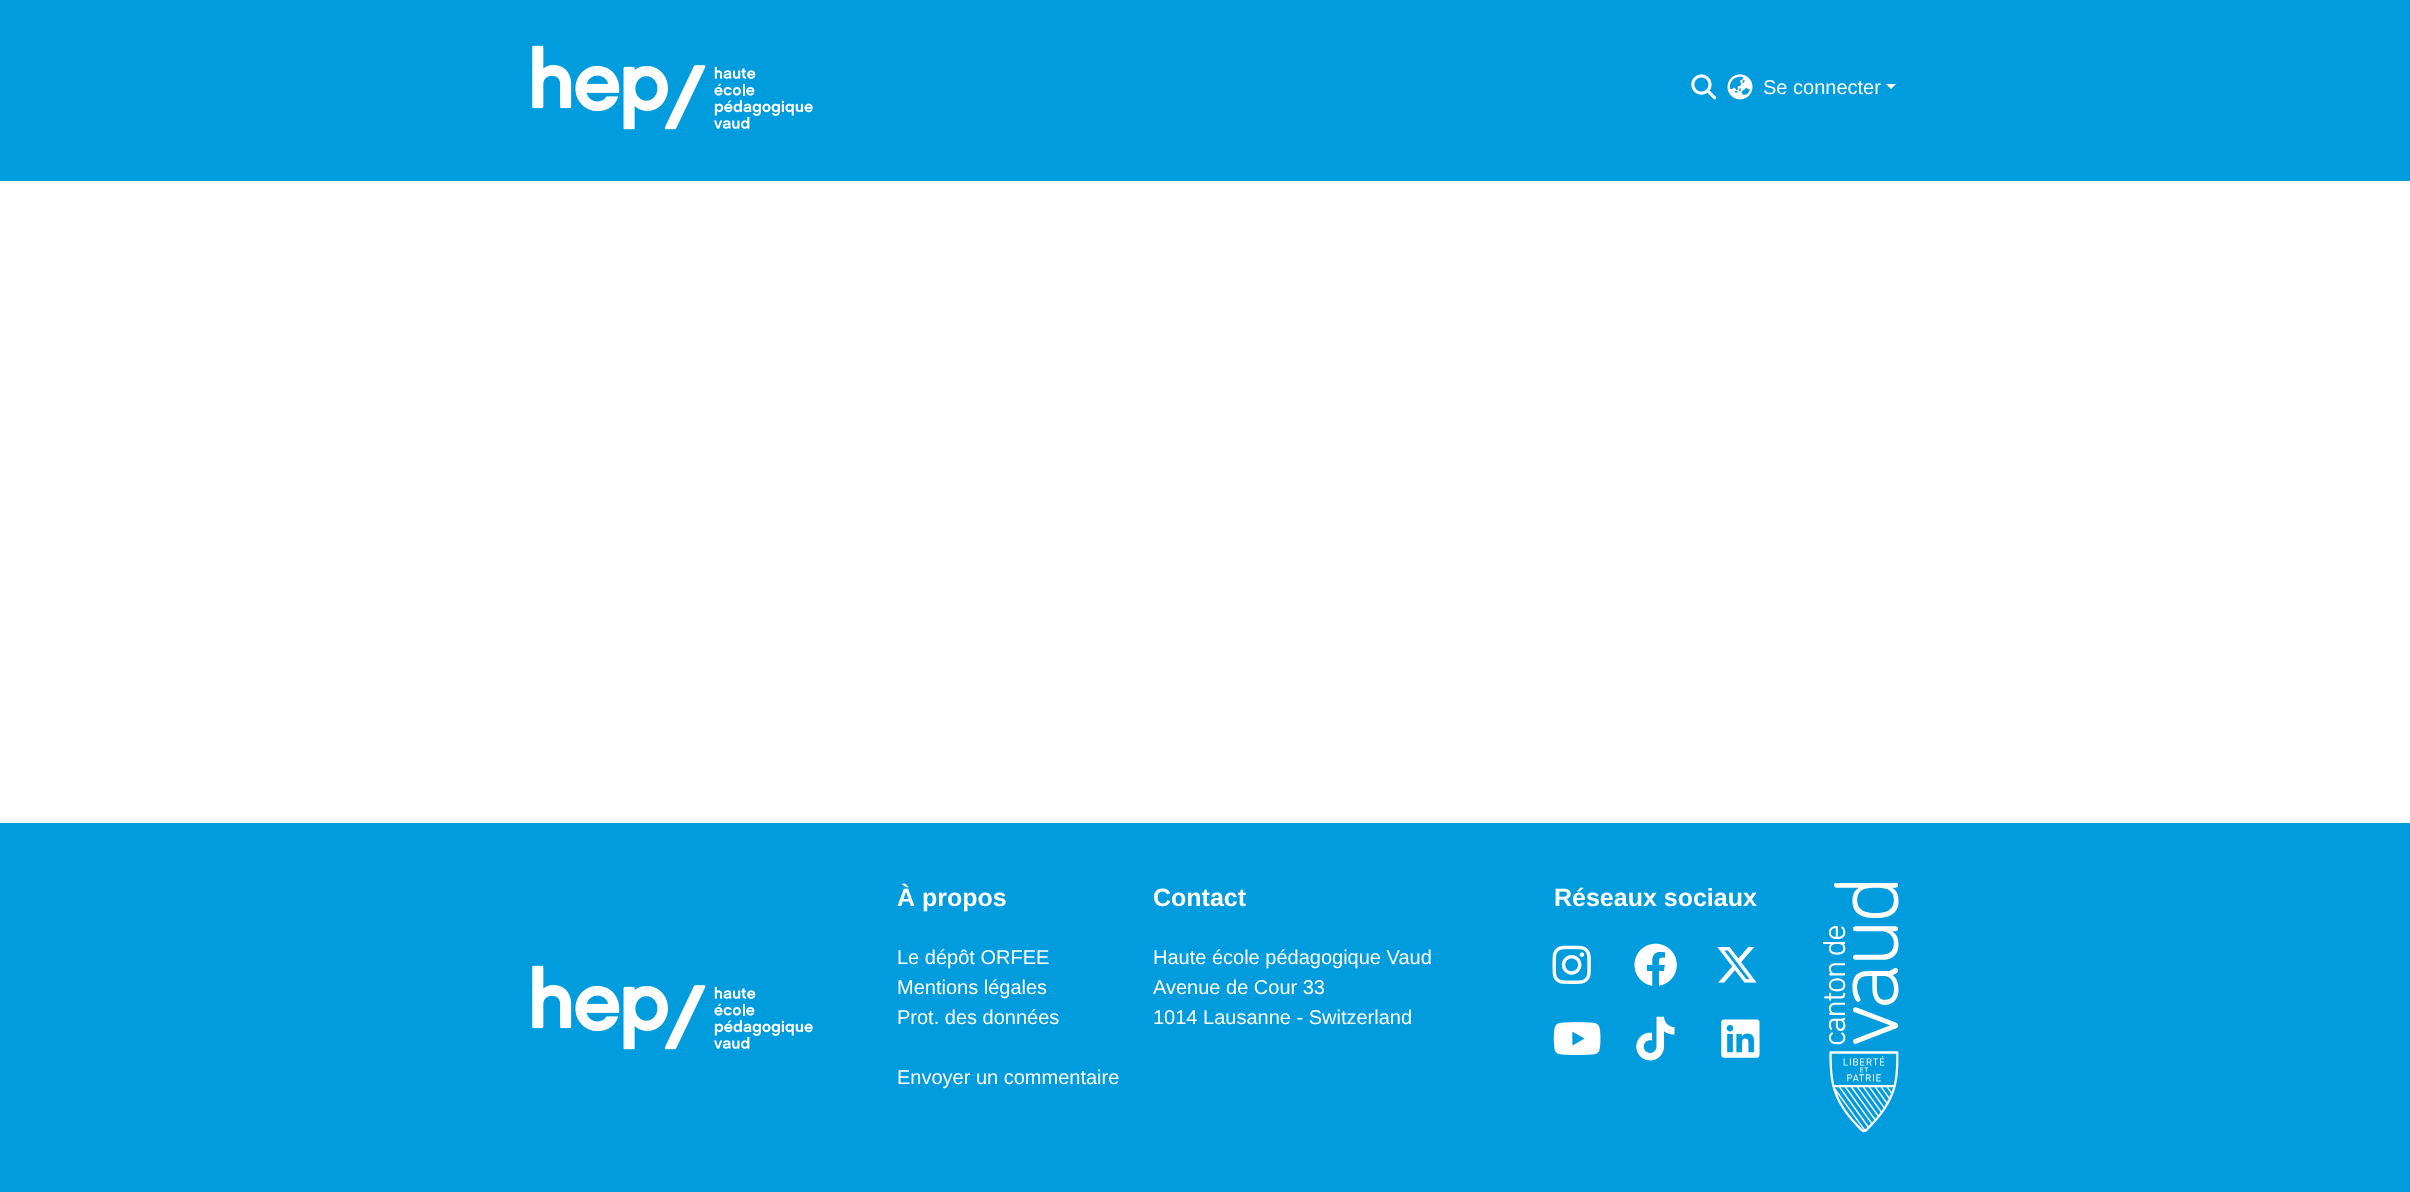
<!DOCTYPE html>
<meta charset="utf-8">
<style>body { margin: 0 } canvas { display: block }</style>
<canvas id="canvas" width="2410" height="1192"></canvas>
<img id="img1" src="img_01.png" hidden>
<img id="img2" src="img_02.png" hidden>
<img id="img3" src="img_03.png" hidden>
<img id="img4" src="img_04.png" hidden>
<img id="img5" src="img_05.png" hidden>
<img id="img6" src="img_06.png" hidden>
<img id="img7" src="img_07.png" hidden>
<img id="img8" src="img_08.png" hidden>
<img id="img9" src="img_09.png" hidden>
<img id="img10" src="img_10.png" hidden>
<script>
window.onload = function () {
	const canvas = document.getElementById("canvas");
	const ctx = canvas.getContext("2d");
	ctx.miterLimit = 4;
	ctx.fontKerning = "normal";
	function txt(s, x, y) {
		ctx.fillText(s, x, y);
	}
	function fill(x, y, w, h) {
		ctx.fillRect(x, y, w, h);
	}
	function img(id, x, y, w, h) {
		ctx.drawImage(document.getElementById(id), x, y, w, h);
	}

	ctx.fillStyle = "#FFFFFF";
	fill(0, 0, 2410, 1192);
	ctx.fillStyle = "#009CDE";
	fill(0, 0, 2410, 181);
	img("img1", 532, 45, 281, 85);
	img("img2", 1691, 74, 26, 26);
	img("img3", 1727, 74, 26, 26);
	ctx.fillStyle = "#FFFFFF";
	ctx.beginPath();
	ctx.moveTo(1886, 84);
	ctx.lineTo(1896, 84);
	ctx.lineTo(1891, 89);
	ctx.closePath();
	ctx.fill();
	ctx.fillStyle = "#009CDE";
	fill(0, 823, 2410, 369);
	img("img1", 532, 965, 281, 85);
	img("img4", 1552, 945, 39, 39);
	img("img5", 1634, 943, 43, 43);
	img("img6", 1717, 947, 40, 36);
	img("img7", 1553, 1022, 48, 33);
	img("img8", 1636, 1016, 39, 45);
	img("img9", 1721, 1019, 39, 39);
	img("img10", 1823, 883, 76, 250);
	ctx.font = "20px Liberation Sans";
	ctx.fillStyle = "#FFFFFF";
	txt("Se connecter", 1763, 94);
	ctx.font = "bold 25px Liberation Sans";
	txt("À propos", 897, 906);
	ctx.font = "20px Liberation Sans";
	txt("Le dépôt ORFEE", 897, 964);
	txt("Mentions légales", 897, 994);
	txt("Prot. des données", 897, 1024);
	txt("Envoyer un commentaire", 897, 1084);
	ctx.font = "bold 25px Liberation Sans";
	txt("Contact", 1153, 906);
	ctx.font = "20px Liberation Sans";
	txt("Haute école pédagogique Vaud", 1153, 964);
	txt("Avenue de Cour 33", 1153, 994);
	txt("1014 Lausanne - Switzerland", 1153, 1024);
	ctx.font = "bold 25px Liberation Sans";
	txt("Réseaux sociaux", 1554, 906);
};
</script>
